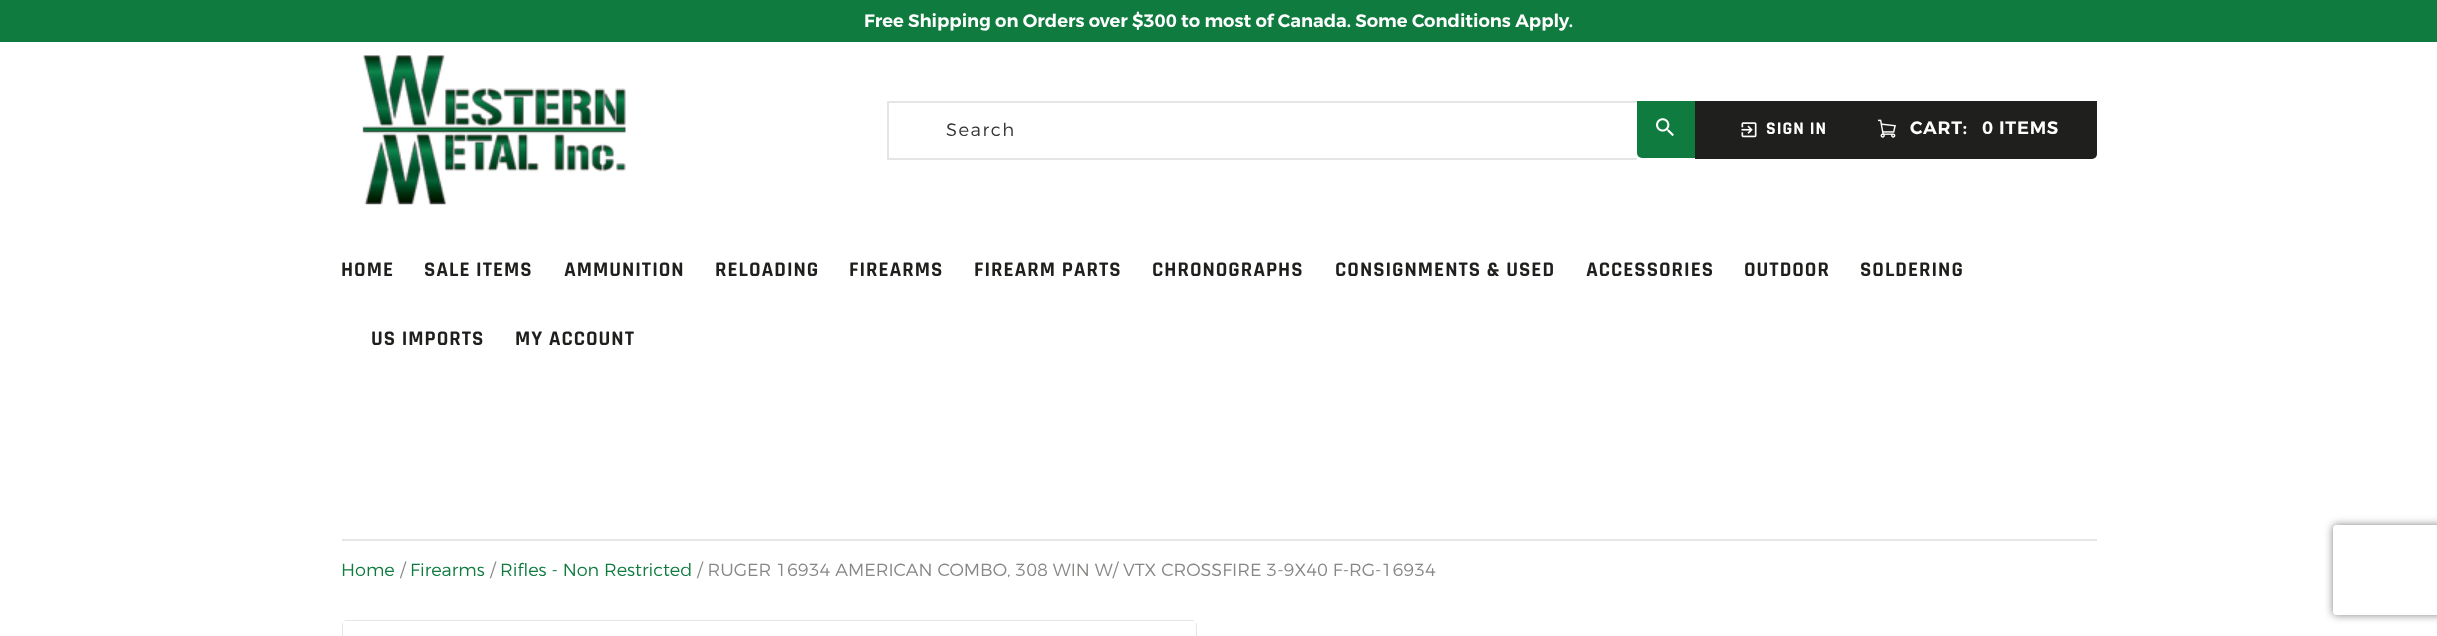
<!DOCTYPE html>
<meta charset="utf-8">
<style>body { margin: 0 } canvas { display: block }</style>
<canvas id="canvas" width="2437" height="636"></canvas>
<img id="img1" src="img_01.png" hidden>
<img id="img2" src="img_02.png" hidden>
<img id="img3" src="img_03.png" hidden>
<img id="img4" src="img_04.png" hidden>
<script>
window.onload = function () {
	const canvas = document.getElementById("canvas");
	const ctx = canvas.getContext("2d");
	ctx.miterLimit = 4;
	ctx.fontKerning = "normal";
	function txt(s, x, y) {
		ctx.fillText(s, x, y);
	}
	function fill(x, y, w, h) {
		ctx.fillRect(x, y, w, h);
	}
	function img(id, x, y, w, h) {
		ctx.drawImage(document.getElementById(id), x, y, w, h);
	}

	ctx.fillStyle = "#FFFFFF";
	fill(0, 0, 2437, 636);
	ctx.fillStyle = "#0F7B3F";
	fill(0, 0, 2437, 42);
	img("img1", 362, 55, 264, 150);
	ctx.fillStyle = "#E5E5E5";
	fill(887, 101, 750, 2);
	fill(887, 158, 750, 2);
	fill(887, 101, 2, 58);
	ctx.fillStyle = "#0F7B3F";
	ctx.beginPath();
	ctx.roundRect(1637, 101, 58, 57, [0, 0, 0, 5]);
	ctx.fill();
	img("img2", 1656, 118, 18, 19);
	ctx.fillStyle = "#1F1F1D";
	fill(1695, 101, 146, 58);
	img("img3", 1741, 122, 16, 16);
	ctx.beginPath();
	ctx.roundRect(1841, 101, 256, 58, [0, 0, 5, 0]);
	ctx.fill();
	img("img4", 1878, 119, 18, 19);
	ctx.fillStyle = "#E5E5E5";
	fill(342, 539, 1755, 2);
	ctx.beginPath();
	ctx.roundRect(343, 621, 853, 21, 4);
	ctx.strokeStyle = "#E5E5E5";
	ctx.lineWidth = 2;
	ctx.stroke();
	ctx.fillStyle = "#FFFFFF";
	fill(343, 621, 853, 15);
	ctx.save();
	ctx.beginPath();
	ctx.moveTo(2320, 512);
	ctx.lineTo(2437, 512);
	ctx.lineTo(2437, 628);
	ctx.lineTo(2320, 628);
	ctx.closePath();
	ctx.moveTo(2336, 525);
	ctx.lineTo(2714, 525);
	ctx.bezierCurveTo(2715.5, 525, 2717, 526.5, 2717, 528);
	ctx.lineTo(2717, 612);
	ctx.bezierCurveTo(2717, 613.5, 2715.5, 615, 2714, 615);
	ctx.lineTo(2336, 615);
	ctx.bezierCurveTo(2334.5, 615, 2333, 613.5, 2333, 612);
	ctx.lineTo(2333, 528);
	ctx.bezierCurveTo(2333, 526.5, 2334.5, 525, 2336, 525);
	ctx.closePath();
	ctx.clip("evenodd");
	ctx.fillStyle = "#808080";
	ctx.filter = "blur(4px)";
	ctx.beginPath();
	ctx.roundRect(2333, 525, 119, 90, 3);
	ctx.fill();
	ctx.filter = "none";
	ctx.restore();
	ctx.font = "600 18px Montserrat";
	txt("Free Shipping on Orders over $300 to most of Canada. Some Conditions Apply.", 864, 27);
	ctx.letterSpacing = "1.5px";
	ctx.font = "300 18px Montserrat";
	ctx.fillStyle = "#333333";
	txt("Search", 946, 136);
	ctx.letterSpacing = "1px";
	ctx.font = "bold 18px Rajdhani";
	ctx.fillStyle = "#FFFFFF";
	txt("SIGN IN", 1766, 134);
	ctx.letterSpacing = "0.75px";
	ctx.font = "600 18px Montserrat";
	txt("CART:", 1910, 134);
	txt("0 ITEMS", 1982, 134);
	ctx.letterSpacing = "1px";
	ctx.font = "bold 21px Rajdhani";
	ctx.fillStyle = "#1F1F1D";
	txt("HOME", 341, 276);
	txt("SALE ITEMS", 424, 276);
	txt("AMMUNITION", 564, 276);
	txt("RELOADING", 715, 276);
	txt("FIREARMS", 849, 276);
	txt("FIREARM PARTS", 974, 276);
	txt("CHRONOGRAPHS", 1152, 276);
	txt("CONSIGNMENTS & USED", 1335, 276);
	txt("ACCESSORIES", 1586, 276);
	txt("OUTDOOR", 1744, 276);
	txt("SOLDERING", 1860, 276);
	txt("US IMPORTS", 371, 345);
	txt("MY ACCOUNT", 515, 345);
	ctx.letterSpacing = "0px";
	ctx.font = "300 17.65px Montserrat";
	ctx.fillStyle = "#0F7B3F";
	txt("Home", 341, 576);
	ctx.fillStyle = "#878786";
	txt("/", 400, 576);
	ctx.fillStyle = "#0F7B3F";
	txt("Firearms", 410, 576);
	ctx.fillStyle = "#878786";
	txt("/", 490, 576);
	ctx.fillStyle = "#0F7B3F";
	txt("Rifles - Non Restricted", 500, 576);
	ctx.fillStyle = "#878786";
	txt("/ RUGER 16934 AMERICAN COMBO, 308 WIN W/ VTX CROSSFIRE 3-9X40 F-RG-16934", 697, 576);
};
</script>
